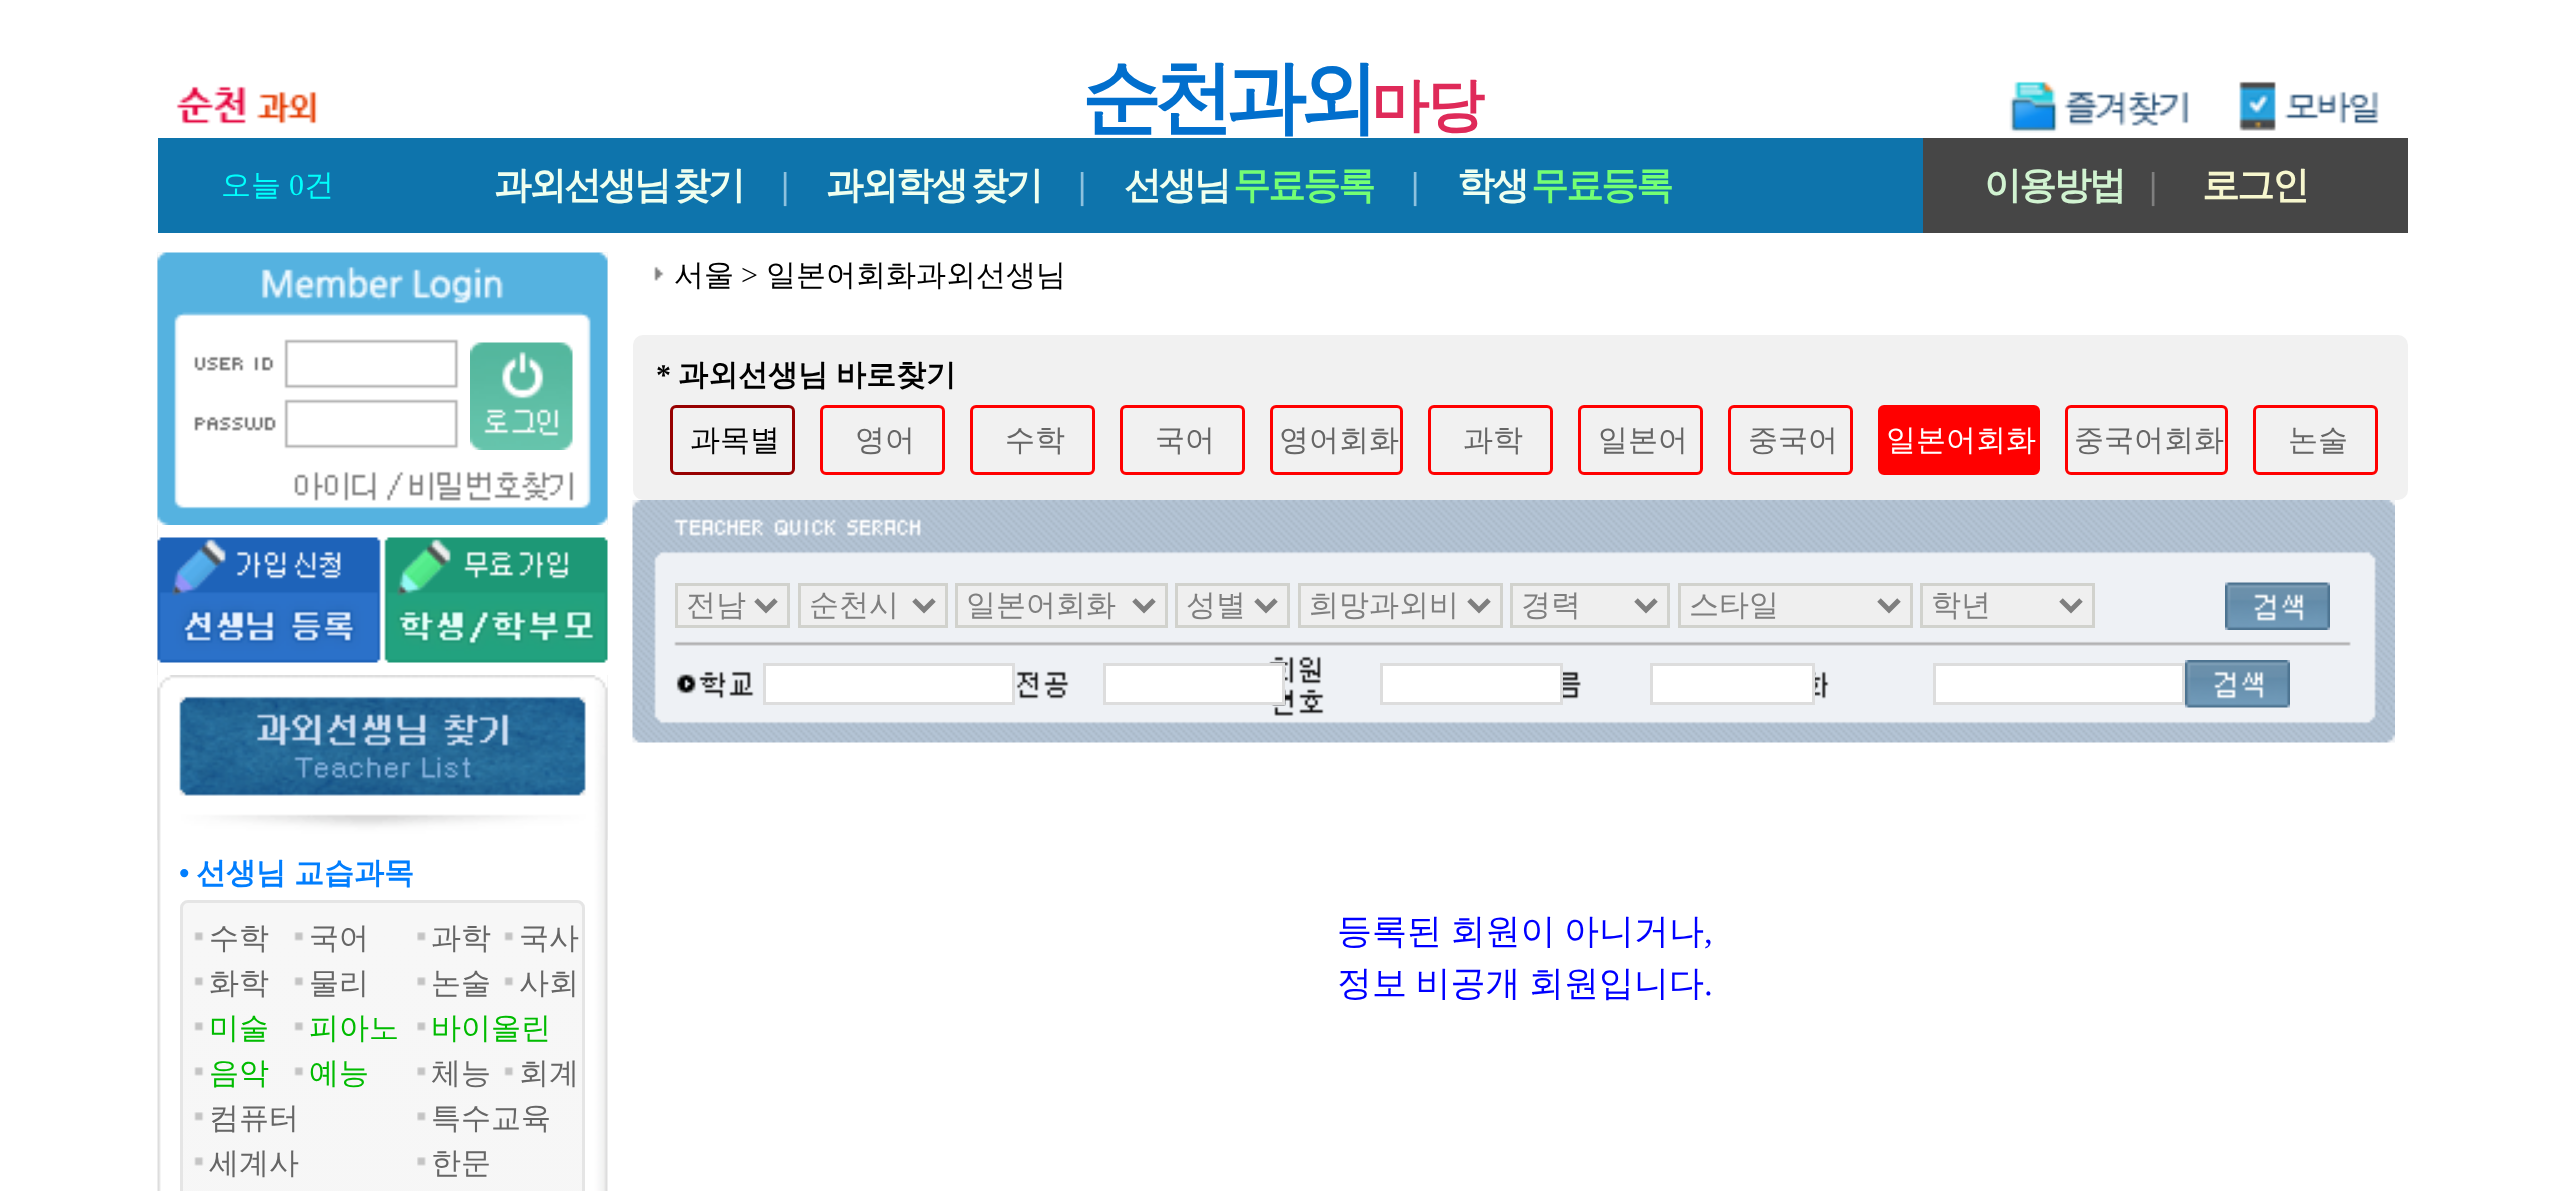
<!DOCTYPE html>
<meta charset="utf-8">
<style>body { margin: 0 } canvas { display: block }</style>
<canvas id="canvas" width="2562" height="1191"></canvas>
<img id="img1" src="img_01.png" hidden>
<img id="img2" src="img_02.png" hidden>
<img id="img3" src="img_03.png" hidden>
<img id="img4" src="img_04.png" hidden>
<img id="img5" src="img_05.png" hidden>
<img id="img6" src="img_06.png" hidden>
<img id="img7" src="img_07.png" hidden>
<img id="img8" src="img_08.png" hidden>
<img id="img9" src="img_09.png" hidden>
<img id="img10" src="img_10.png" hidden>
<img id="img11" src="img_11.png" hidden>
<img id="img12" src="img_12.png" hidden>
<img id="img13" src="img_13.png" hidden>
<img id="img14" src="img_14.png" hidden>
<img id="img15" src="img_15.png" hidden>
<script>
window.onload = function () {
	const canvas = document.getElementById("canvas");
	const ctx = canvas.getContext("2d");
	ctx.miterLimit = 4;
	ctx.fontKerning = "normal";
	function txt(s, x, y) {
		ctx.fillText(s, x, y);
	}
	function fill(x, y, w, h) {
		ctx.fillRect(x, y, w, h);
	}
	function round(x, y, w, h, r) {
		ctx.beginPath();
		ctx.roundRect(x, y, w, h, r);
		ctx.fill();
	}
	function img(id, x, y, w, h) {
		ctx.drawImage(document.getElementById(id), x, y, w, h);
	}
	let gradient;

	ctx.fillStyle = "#FFFFFF";
	fill(0, 0, 2562, 1191);
	img("img1", 176, 86, 142, 38);
	img("img2", 2009, 81, 180, 52);
	img("img3", 2239, 81, 140, 50);
	ctx.fillStyle = "#0E74AC";
	fill(158, 138, 1765, 95);
	ctx.fillStyle = "#464646";
	fill(1923, 138, 485, 95);
	img("img4", 157, 252, 451, 939);
	img("img5", 157, 252, 451, 273);
	img("img6", 470, 342, 103, 108);
	ctx.fillStyle = "#FFFFFF";
	fill(158, 525, 450, 150);
	img("img7", 157, 537, 451, 126);
	img("img8", 157, 675, 451, 165);
	ctx.save();
	ctx.beginPath();
	ctx.roundRect(180, 900, 405, 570, 8);
	ctx.clip();
	gradient = ctx.createLinearGradient(383, 903, 383, 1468);
	gradient.addColorStop(0.05, "#F7F7F7");
	gradient.addColorStop(1, "#F6F6F6");
	ctx.fillStyle = gradient;
	fill(180, 903, 405, 288);
	ctx.restore();
	ctx.beginPath();
	ctx.roundRect(181.5, 901.5, 402, 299, 6.5);
	ctx.strokeStyle = "#E5E5E5";
	ctx.lineWidth = 3;
	ctx.stroke();
	img("img9", 194, 932, 10, 9);
	img("img10", 294, 932, 10, 9);
	img("img11", 417, 932, 9, 9);
	img("img9", 504, 932, 10, 9);
	img("img9", 194, 977, 10, 9);
	img("img10", 294, 977, 10, 9);
	img("img11", 417, 977, 9, 9);
	img("img9", 504, 977, 10, 9);
	img("img9", 194, 1022, 10, 9);
	img("img10", 294, 1022, 10, 9);
	img("img11", 417, 1022, 9, 9);
	img("img9", 194, 1067, 10, 9);
	img("img10", 294, 1067, 10, 9);
	img("img11", 417, 1067, 9, 9);
	img("img9", 504, 1067, 10, 9);
	img("img9", 194, 1112, 10, 9);
	img("img11", 417, 1112, 9, 9);
	img("img9", 194, 1157, 10, 9);
	img("img11", 417, 1157, 9, 9);
	img("img12", 654, 266, 10, 15);
	ctx.fillStyle = "#F1F1F1";
	round(633, 335, 1775, 165, 10);
	ctx.beginPath();
	ctx.roundRect(671.5, 406.5, 122, 67, 4.5);
	ctx.strokeStyle = "#970000";
	ctx.stroke();
	ctx.beginPath();
	ctx.roundRect(821.5, 406.5, 122, 67, 4.5);
	ctx.strokeStyle = "#FF0000";
	ctx.stroke();
	ctx.beginPath();
	ctx.roundRect(971.5, 406.5, 122, 67, 4.5);
	ctx.stroke();
	ctx.beginPath();
	ctx.roundRect(1121.5, 406.5, 122, 67, 4.5);
	ctx.stroke();
	ctx.beginPath();
	ctx.roundRect(1271.5, 406.5, 130, 67, 4.5);
	ctx.stroke();
	ctx.beginPath();
	ctx.roundRect(1429.5, 406.5, 122, 67, 4.5);
	ctx.stroke();
	ctx.beginPath();
	ctx.roundRect(1579.5, 406.5, 122, 67, 4.5);
	ctx.stroke();
	ctx.beginPath();
	ctx.roundRect(1729.5, 406.5, 122, 67, 4.5);
	ctx.stroke();
	ctx.fillStyle = "#FF0000";
	ctx.beginPath();
	ctx.roundRect(1879.5, 406.5, 159, 67, 4.5);
	ctx.fill();
	ctx.stroke();
	ctx.beginPath();
	ctx.roundRect(2066.5, 406.5, 160, 67, 4.5);
	ctx.stroke();
	ctx.beginPath();
	ctx.roundRect(2254.5, 406.5, 122, 67, 4.5);
	ctx.stroke();
	img("img13", 632, 500, 1763, 243);
	ctx.fillStyle = "#EFEFEF";
	ctx.beginPath();
	ctx.rect(676.5, 584.5, 112, 42);
	ctx.fill();
	ctx.strokeStyle = "#D1D2CD";
	ctx.stroke();
	ctx.beginPath();
	ctx.moveTo(756, 600);
	ctx.lineTo(766, 610);
	ctx.lineTo(776, 600);
	ctx.strokeStyle = "#7F7F7F";
	ctx.lineWidth = 5;
	ctx.stroke();
	ctx.beginPath();
	ctx.rect(799.5, 584.5, 147, 42);
	ctx.fill();
	ctx.strokeStyle = "#D1D2CD";
	ctx.lineWidth = 3;
	ctx.stroke();
	ctx.beginPath();
	ctx.moveTo(914, 600);
	ctx.lineTo(924, 610);
	ctx.lineTo(934, 600);
	ctx.strokeStyle = "#7F7F7F";
	ctx.lineWidth = 5;
	ctx.stroke();
	ctx.beginPath();
	ctx.rect(956.5, 584.5, 210, 42);
	ctx.fill();
	ctx.strokeStyle = "#D1D2CD";
	ctx.lineWidth = 3;
	ctx.stroke();
	ctx.beginPath();
	ctx.moveTo(1134, 600);
	ctx.lineTo(1144, 610);
	ctx.lineTo(1154, 600);
	ctx.strokeStyle = "#7F7F7F";
	ctx.lineWidth = 5;
	ctx.stroke();
	ctx.beginPath();
	ctx.rect(1176.5, 584.5, 112, 42);
	ctx.fill();
	ctx.strokeStyle = "#D1D2CD";
	ctx.lineWidth = 3;
	ctx.stroke();
	ctx.beginPath();
	ctx.moveTo(1256, 600);
	ctx.lineTo(1266, 610);
	ctx.lineTo(1276, 600);
	ctx.strokeStyle = "#7F7F7F";
	ctx.lineWidth = 5;
	ctx.stroke();
	ctx.beginPath();
	ctx.rect(1299.5, 584.5, 202, 42);
	ctx.fill();
	ctx.strokeStyle = "#D1D2CD";
	ctx.lineWidth = 3;
	ctx.stroke();
	ctx.beginPath();
	ctx.moveTo(1469, 600);
	ctx.lineTo(1479, 610);
	ctx.lineTo(1489, 600);
	ctx.strokeStyle = "#7F7F7F";
	ctx.lineWidth = 5;
	ctx.stroke();
	ctx.beginPath();
	ctx.rect(1511.5, 584.5, 157, 42);
	ctx.fill();
	ctx.strokeStyle = "#D1D2CD";
	ctx.lineWidth = 3;
	ctx.stroke();
	ctx.beginPath();
	ctx.moveTo(1636, 600);
	ctx.lineTo(1646, 610);
	ctx.lineTo(1656, 600);
	ctx.strokeStyle = "#7F7F7F";
	ctx.lineWidth = 5;
	ctx.stroke();
	ctx.beginPath();
	ctx.rect(1679.5, 584.5, 232, 42);
	ctx.fill();
	ctx.strokeStyle = "#D1D2CD";
	ctx.lineWidth = 3;
	ctx.stroke();
	ctx.beginPath();
	ctx.moveTo(1879, 600);
	ctx.lineTo(1889, 610);
	ctx.lineTo(1899, 600);
	ctx.strokeStyle = "#7F7F7F";
	ctx.lineWidth = 5;
	ctx.stroke();
	ctx.beginPath();
	ctx.rect(1921.5, 584.5, 172, 42);
	ctx.fill();
	ctx.strokeStyle = "#D1D2CD";
	ctx.lineWidth = 3;
	ctx.stroke();
	ctx.beginPath();
	ctx.moveTo(2061, 600);
	ctx.lineTo(2071, 610);
	ctx.lineTo(2081, 600);
	ctx.strokeStyle = "#7F7F7F";
	ctx.lineWidth = 5;
	ctx.stroke();
	img("img14", 2225, 582, 105, 48);
	ctx.fillStyle = "#FFFFFF";
	ctx.beginPath();
	ctx.rect(764.5, 664.5, 249, 39);
	ctx.fill();
	ctx.strokeStyle = "#DDDDDD";
	ctx.lineWidth = 3;
	ctx.stroke();
	ctx.beginPath();
	ctx.rect(1104.5, 664.5, 179, 39);
	ctx.fill();
	ctx.stroke();
	ctx.beginPath();
	ctx.rect(1381.5, 664.5, 180, 39);
	ctx.fill();
	ctx.stroke();
	ctx.beginPath();
	ctx.rect(1651.5, 664.5, 162, 39);
	ctx.fill();
	ctx.stroke();
	ctx.beginPath();
	ctx.rect(1934.5, 664.5, 249, 39);
	ctx.fill();
	ctx.stroke();
	img("img15", 2185, 660, 105, 48);
	ctx.letterSpacing = "-7.5px";
	ctx.font = "bold 80px WenQuanYi Zen Hei";
	ctx.fillStyle = "#016FCD";
	txt("순천과외", 1081, 125);
	ctx.letterSpacing = "-2.5px";
	ctx.font = "bold 58px WenQuanYi Zen Hei";
	ctx.fillStyle = "#DF2A59";
	txt("마당", 1371, 125);
	ctx.letterSpacing = "0px";
	ctx.font = "500 30px WenQuanYi Zen Hei";
	ctx.fillStyle = "#00FFFC";
	txt("오늘", 221, 195);
	ctx.font = "30px Liberation Serif";
	txt("0", 289, 195);
	ctx.font = "500 30px WenQuanYi Zen Hei";
	txt("건", 304, 195);
	ctx.letterSpacing = "-2.5px";
	ctx.font = "bold 37.5px WenQuanYi Zen Hei";
	ctx.fillStyle = "#EFFFEF";
	txt("과외선생님", 494, 198);
	txt("찾기", 673, 198);
	ctx.letterSpacing = "0px";
	ctx.font = "bold 37.5px Liberation Serif";
	ctx.fillStyle = "#8DC1DE";
	txt("|", 781, 198);
	ctx.letterSpacing = "-2.5px";
	ctx.font = "bold 37.5px WenQuanYi Zen Hei";
	ctx.fillStyle = "#EFFFEF";
	txt("과외학생", 826, 198);
	txt("찾기", 971, 198);
	ctx.letterSpacing = "0px";
	ctx.font = "bold 37.5px Liberation Serif";
	ctx.fillStyle = "#8DC1DE";
	txt("|", 1078, 198);
	ctx.letterSpacing = "-2.5px";
	ctx.font = "bold 37.5px WenQuanYi Zen Hei";
	ctx.fillStyle = "#EFFFEF";
	txt("선생님", 1124, 198);
	ctx.fillStyle = "#74FF74";
	txt("무료등록", 1233, 198);
	ctx.letterSpacing = "0px";
	ctx.font = "bold 37.5px Liberation Serif";
	ctx.fillStyle = "#8DC1DE";
	txt("|", 1411, 198);
	ctx.letterSpacing = "-2.5px";
	ctx.font = "bold 37.5px WenQuanYi Zen Hei";
	ctx.fillStyle = "#EFFFEF";
	txt("학생", 1457, 198);
	ctx.fillStyle = "#74FF74";
	txt("무료등록", 1531, 198);
	ctx.fillStyle = "#D1F3D1";
	txt("이용방법", 1984, 198);
	ctx.letterSpacing = "0px";
	ctx.font = "bold 37.5px Liberation Serif";
	ctx.fillStyle = "#7F7F7F";
	txt("|", 2149, 198);
	ctx.letterSpacing = "-2.5px";
	ctx.font = "bold 37.5px WenQuanYi Zen Hei";
	ctx.fillStyle = "#F7F7CE";
	txt("로그인", 2202, 198);
	ctx.letterSpacing = "0px";
	ctx.font = "bold 30px Liberation Serif";
	ctx.fillStyle = "#017EFE";
	txt("•", 179, 883);
	ctx.wordSpacing = "-1px";
	ctx.font = "bold 30px WenQuanYi Zen Hei";
	txt("선생님 교습과목", 196, 883);
	ctx.wordSpacing = "0px";
	ctx.font = "500 30px WenQuanYi Zen Hei";
	ctx.fillStyle = "#666666";
	txt("수학", 209, 948);
	txt("국어", 309, 948);
	txt("과학", 431, 948);
	txt("국사", 519, 948);
	txt("화학", 209, 993);
	txt("물리", 309, 993);
	txt("논술", 431, 993);
	txt("사회", 519, 993);
	ctx.fillStyle = "#00BB00";
	txt("미술", 209, 1038);
	txt("피아노", 309, 1038);
	txt("바이올린", 431, 1038);
	txt("음악", 209, 1083);
	txt("예능", 309, 1083);
	ctx.fillStyle = "#666666";
	txt("체능", 431, 1083);
	txt("회계", 519, 1083);
	txt("컴퓨터", 209, 1128);
	txt("특수교육", 431, 1128);
	txt("세계사", 209, 1173);
	txt("한문", 431, 1173);
	ctx.fillStyle = "#000000";
	txt("서울", 674, 285);
	ctx.font = "30px Liberation Serif";
	txt(">", 741, 285);
	ctx.font = "500 30px WenQuanYi Zen Hei";
	txt("일본어회화과외선생님", 766, 285);
	ctx.font = "bold 30px Liberation Serif";
	txt("*", 656, 385);
	ctx.wordSpacing = "-1px";
	ctx.font = "bold 30px WenQuanYi Zen Hei";
	txt("과외선생님 바로찾기", 678, 385);
	ctx.wordSpacing = "0px";
	ctx.font = "500 30px WenQuanYi Zen Hei";
	txt("과목별", 690, 450);
	ctx.fillStyle = "#666666";
	txt("영어", 855, 450);
	txt("수학", 1005, 450);
	txt("국어", 1155, 450);
	txt("영어회화", 1279, 450);
	txt("과학", 1463, 450);
	txt("일본어", 1598, 450);
	txt("중국어", 1748, 450);
	ctx.fillStyle = "#FFFFFF";
	txt("일본어회화", 1886, 450);
	ctx.fillStyle = "#666666";
	txt("중국어회화", 2074, 450);
	txt("논술", 2288, 450);
	ctx.fillStyle = "#7F7F7F";
	txt("전남", 686, 615);
	txt("순천시", 809, 615);
	txt("일본어회화", 966, 615);
	txt("성별", 1186, 615);
	txt("희망과외비", 1309, 615);
	txt("경력", 1521, 615);
	txt("스타일", 1689, 615);
	txt("학년", 1931, 615);
	ctx.wordSpacing = "-2px";
	ctx.font = "500 35px WenQuanYi Zen Hei";
	ctx.fillStyle = "#0000FF";
	txt("등록된 회원이 아니거나", 1337, 943);
	ctx.wordSpacing = "0px";
	ctx.font = "35px Liberation Serif";
	txt(",", 1704, 943);
	ctx.wordSpacing = "-2px";
	ctx.font = "500 35px WenQuanYi Zen Hei";
	txt("정보 비공개 회원입니다", 1337, 995);
	ctx.wordSpacing = "0px";
	ctx.font = "35px Liberation Serif";
	txt(".", 1704, 995);
};
</script>
